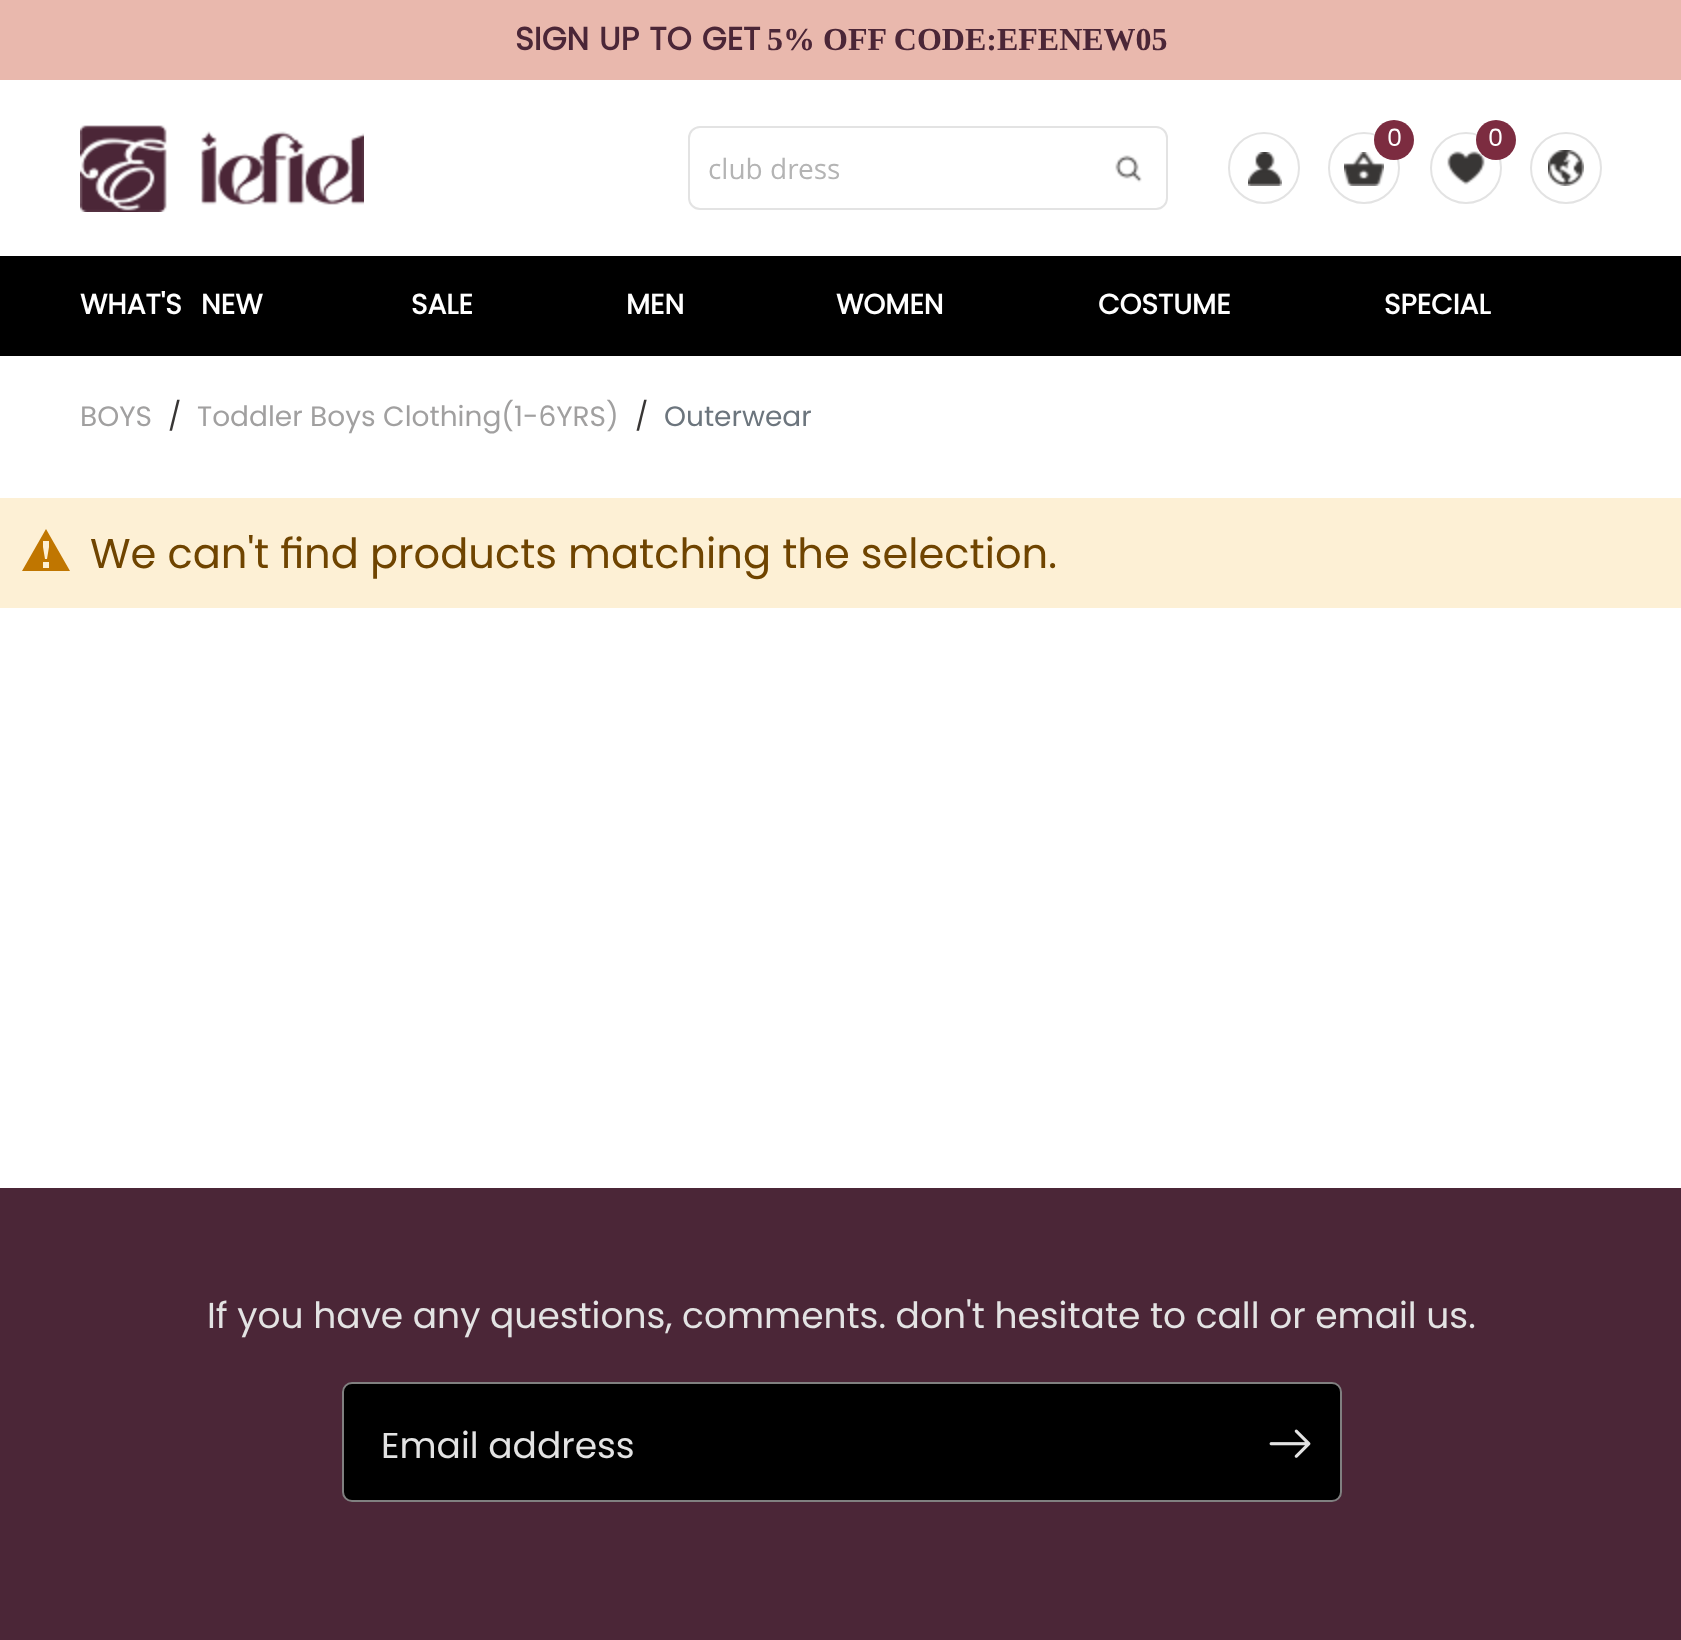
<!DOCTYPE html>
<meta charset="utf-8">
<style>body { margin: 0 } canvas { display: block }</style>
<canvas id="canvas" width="1681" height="1640"></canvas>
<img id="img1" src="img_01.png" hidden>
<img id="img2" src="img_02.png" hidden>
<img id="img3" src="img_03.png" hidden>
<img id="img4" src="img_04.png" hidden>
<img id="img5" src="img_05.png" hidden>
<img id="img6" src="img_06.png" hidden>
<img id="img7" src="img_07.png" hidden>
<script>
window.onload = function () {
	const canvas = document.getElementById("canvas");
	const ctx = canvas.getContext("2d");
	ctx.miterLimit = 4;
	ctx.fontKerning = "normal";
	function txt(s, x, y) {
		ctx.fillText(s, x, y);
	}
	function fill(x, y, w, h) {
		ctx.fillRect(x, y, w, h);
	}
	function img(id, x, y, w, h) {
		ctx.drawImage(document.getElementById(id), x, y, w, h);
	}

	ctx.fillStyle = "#FFFFFF";
	fill(0, 0, 1681, 1640);
	ctx.fillStyle = "#E9B8AD";
	fill(0, 0, 1681, 80);
	img("img1", 80, 125, 284, 87);
	ctx.beginPath();
	ctx.arc(1264, 168, 35, 0, Math.PI * 2);
	ctx.strokeStyle = "#E3E3E3";
	ctx.lineWidth = 2;
	ctx.stroke();
	img("img2", 1248, 152, 34, 34);
	ctx.beginPath();
	ctx.arc(1364, 168, 35, 0, Math.PI * 2);
	ctx.stroke();
	img("img3", 1344, 152, 40, 34);
	ctx.fillStyle = "#7C2C40";
	ctx.beginPath();
	ctx.arc(1394, 140, 20, 0, Math.PI * 2);
	ctx.fill();
	ctx.beginPath();
	ctx.arc(1466, 168, 35, 0, Math.PI * 2);
	ctx.stroke();
	img("img4", 1447, 151, 38, 34);
	ctx.beginPath();
	ctx.arc(1496, 140, 20, 0, Math.PI * 2);
	ctx.fill();
	ctx.beginPath();
	ctx.arc(1566, 168, 35, 0, Math.PI * 2);
	ctx.stroke();
	img("img5", 1548, 150, 36, 36);
	ctx.beginPath();
	ctx.roundRect(689, 127, 478, 82, 11);
	ctx.stroke();
	img("img6", 1115, 155, 27, 28);
	ctx.fillStyle = "#000000";
	fill(0, 256, 1681, 100);
	ctx.fillStyle = "#FDF0D5";
	fill(0, 498, 1681, 110);
	ctx.fillStyle = "#C07600";
	ctx.beginPath();
	ctx.moveTo(46, 529);
	ctx.lineTo(22, 571);
	ctx.lineTo(70, 571);
	ctx.closePath();
	ctx.moveTo(49, 541);
	ctx.lineTo(49, 547);
	ctx.lineTo(47, 559);
	ctx.lineTo(45, 559);
	ctx.lineTo(43, 547);
	ctx.lineTo(43, 541);
	ctx.closePath();
	ctx.moveTo(43, 568);
	ctx.lineTo(43, 562);
	ctx.lineTo(49, 562);
	ctx.lineTo(49, 568);
	ctx.closePath();
	ctx.fill();
	ctx.fillStyle = "#4B2637";
	fill(0, 1188, 1681, 452);
	ctx.fillStyle = "#000000";
	ctx.beginPath();
	ctx.roundRect(343, 1383, 998, 118, 9);
	ctx.fill();
	ctx.strokeStyle = "#808080";
	ctx.stroke();
	img("img7", 1269, 1429, 42, 29);
	ctx.wordSpacing = "1.5px";
	ctx.font = "bold 32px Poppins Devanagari";
	ctx.fillStyle = "#4B2637";
	txt("SIGN UP TO GET", 515, 50);
	ctx.wordSpacing = "0px";
	ctx.font = "bold 32px Liberation Serif";
	txt("5% OFF CODE:EFENEW05", 767, 50);
	ctx.font = "24px Poppins Devanagari";
	ctx.fillStyle = "#FFFFFF";
	txt("0", 1387, 146);
	txt("0", 1488, 146);
	ctx.font = "28px Open Sans";
	ctx.fillStyle = "#B4B4B4";
	txt("club dress", 708, 179);
	ctx.wordSpacing = "12px";
	ctx.font = "bold 28px Poppins Devanagari";
	ctx.fillStyle = "#FFFFFF";
	txt("WHAT'S NEW", 80, 314);
	ctx.wordSpacing = "0px";
	txt("SALE", 411, 314);
	txt("MEN", 626, 314);
	txt("WOMEN", 836, 314);
	txt("COSTUME", 1098, 314);
	txt("SPECIAL", 1384, 314);
	ctx.font = "28px Poppins Devanagari";
	ctx.fillStyle = "#A1A0A0";
	txt("BOYS", 80, 426);
	ctx.fillStyle = "#383635";
	txt("/", 168, 426);
	ctx.fillStyle = "#A1A0A0";
	txt("Toddler Boys Clothing(1-6YRS)", 197, 426);
	ctx.fillStyle = "#383635";
	txt("/", 635, 426);
	ctx.fillStyle = "#6C757D";
	txt("Outerwear", 664, 426);
	ctx.font = "41.6px Poppins Devanagari";
	ctx.fillStyle = "#6F4400";
	txt("We can't find products matching the selection.", 90, 568);
	ctx.font = "36px Poppins Devanagari";
	ctx.fillStyle = "#E3E3E3";
	txt("If you have any questions, comments. don't hesitate to call or email us.", 207, 1328);
	txt("Email address", 381, 1458);
};
</script>
